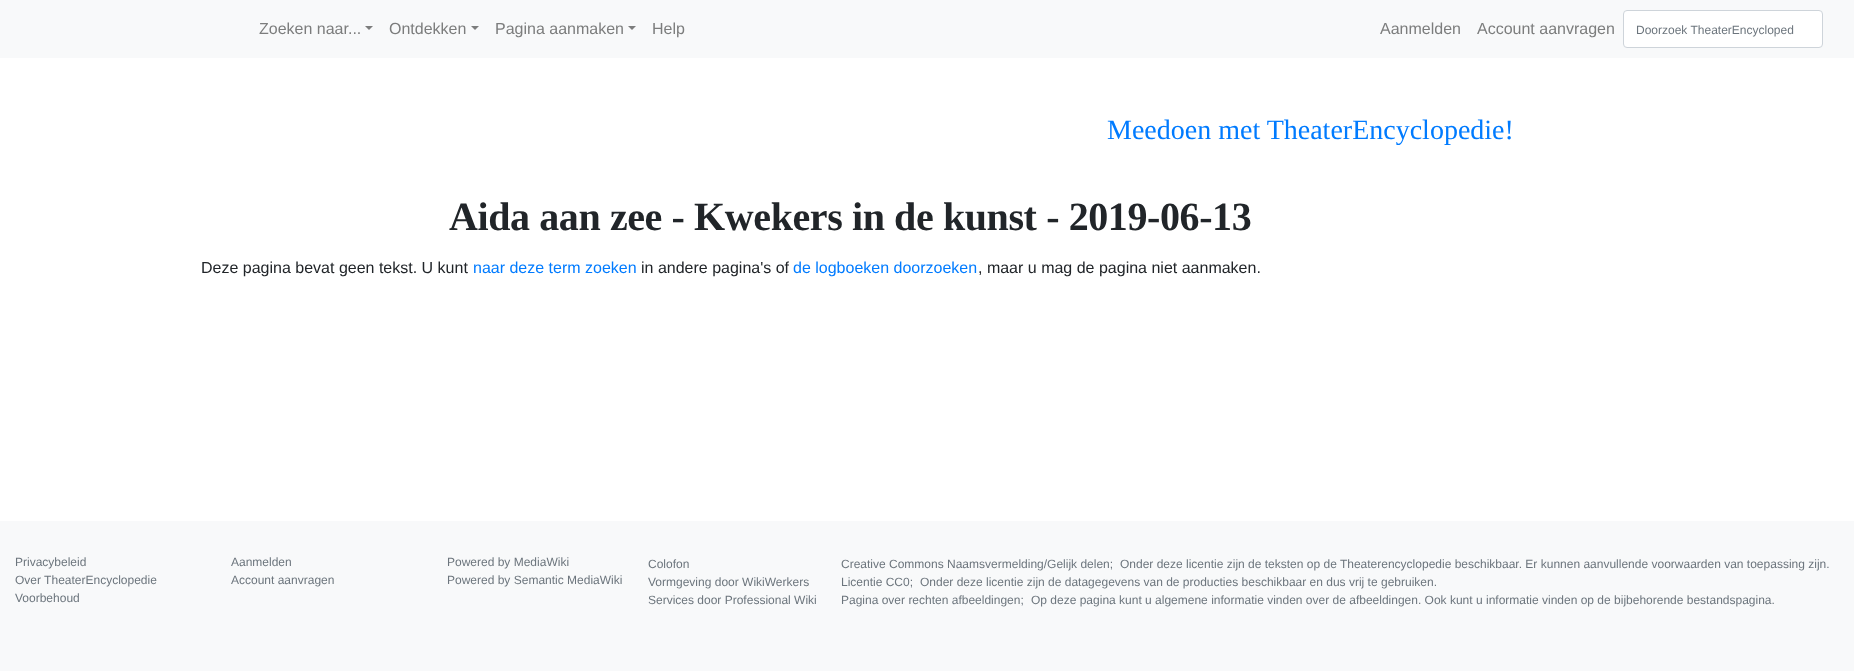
<!DOCTYPE html>
<meta charset="utf-8">
<style>body { margin: 0 } canvas { display: block }</style>
<canvas id="canvas" width="1854" height="671"></canvas>
<script>
window.onload = function () {
	const canvas = document.getElementById("canvas");
	const ctx = canvas.getContext("2d");
	ctx.miterLimit = 4;
	ctx.fontKerning = "normal";
	function txt(s, x, y) {
		ctx.fillText(s, x, y);
	}
	function fill(x, y, w, h) {
		ctx.fillRect(x, y, w, h);
	}

	ctx.fillStyle = "#FFFFFF";
	fill(0, 0, 1854, 671);
	ctx.fillStyle = "#F8F9FA";
	fill(0, 0, 1854, 58);
	ctx.fillStyle = "#7C7D7D";
	ctx.beginPath();
	ctx.moveTo(365, 26);
	ctx.lineTo(373, 26);
	ctx.lineTo(369, 30);
	ctx.closePath();
	ctx.fill();
	ctx.beginPath();
	ctx.moveTo(471, 26);
	ctx.lineTo(479, 26);
	ctx.lineTo(475, 30);
	ctx.closePath();
	ctx.fill();
	ctx.beginPath();
	ctx.moveTo(628, 26);
	ctx.lineTo(636, 26);
	ctx.lineTo(632, 30);
	ctx.closePath();
	ctx.fill();
	ctx.fillStyle = "#FFFFFF";
	ctx.beginPath();
	ctx.roundRect(1623.5, 10.5, 199, 37, 3.5);
	ctx.fill();
	ctx.strokeStyle = "#CED4DA";
	ctx.stroke();
	ctx.fillStyle = "#F8F9FA";
	fill(0, 521, 1854, 150);
	ctx.font = "16px Liberation Sans";
	ctx.fillStyle = "#7C7D7D";
	txt("Zoeken naar...", 259, 34);
	txt("Ontdekken", 389, 34);
	txt("Pagina aanmaken", 495, 34);
	txt("Help", 652, 34);
	txt("Aanmelden", 1380, 34);
	txt("Account aanvragen", 1477, 34);
	ctx.font = "12px Liberation Sans";
	ctx.fillStyle = "#6C757D";
	txt("Doorzoek TheaterEncycloped", 1636, 34);
	ctx.font = "28px Liberation Serif";
	ctx.fillStyle = "#007BFF";
	txt("Meedoen met TheaterEncyclopedie!", 1107, 139);
	ctx.letterSpacing = "-0.4px";
	ctx.font = "bold 40px Liberation Serif";
	ctx.fillStyle = "#212529";
	txt("Aida aan zee - Kwekers in de kunst - 2019-06-13", 449, 230);
	ctx.letterSpacing = "0px";
	ctx.font = "16px Liberation Sans";
	txt("Deze pagina bevat geen tekst. U kunt", 201, 273);
	ctx.fillStyle = "#007BFF";
	txt("naar deze term zoeken", 473, 273);
	ctx.fillStyle = "#212529";
	txt("in andere pagina's of", 641, 273);
	ctx.fillStyle = "#007BFF";
	txt("de logboeken doorzoeken", 793, 273);
	ctx.fillStyle = "#212529";
	txt(", maar u mag de pagina niet aanmaken.", 978, 273);
	ctx.font = "12px Liberation Sans";
	ctx.fillStyle = "#6C757D";
	txt("Privacybeleid", 15, 566);
	txt("Over TheaterEncyclopedie", 15, 584);
	txt("Voorbehoud", 15, 602);
	txt("Aanmelden", 231, 566);
	txt("Account aanvragen", 231, 584);
	txt("Powered by MediaWiki", 447, 566);
	txt("Powered by Semantic MediaWiki", 447, 584);
	txt("Colofon", 648, 568);
	txt("Vormgeving door WikiWerkers", 648, 586);
	txt("Services door Professional Wiki", 648, 604);
	txt("Creative Commons Naamsvermelding/Gelijk delen;", 841, 568);
	txt("Onder deze licentie zijn de teksten op de Theaterencyclopedie beschikbaar. Er kunnen aanvullende voorwaarden van toepassing zijn.", 1120, 568);
	txt("Licentie CC0;", 841, 586);
	txt("Onder deze licentie zijn de datagegevens van de producties beschikbaar en dus vrij te gebruiken.", 920, 586);
	txt("Pagina over rechten afbeeldingen;", 841, 604);
	txt("Op deze pagina kunt u algemene informatie vinden over de afbeeldingen. Ook kunt u informatie vinden op de bijbehorende bestandspagina.", 1031, 604);
};
</script>
